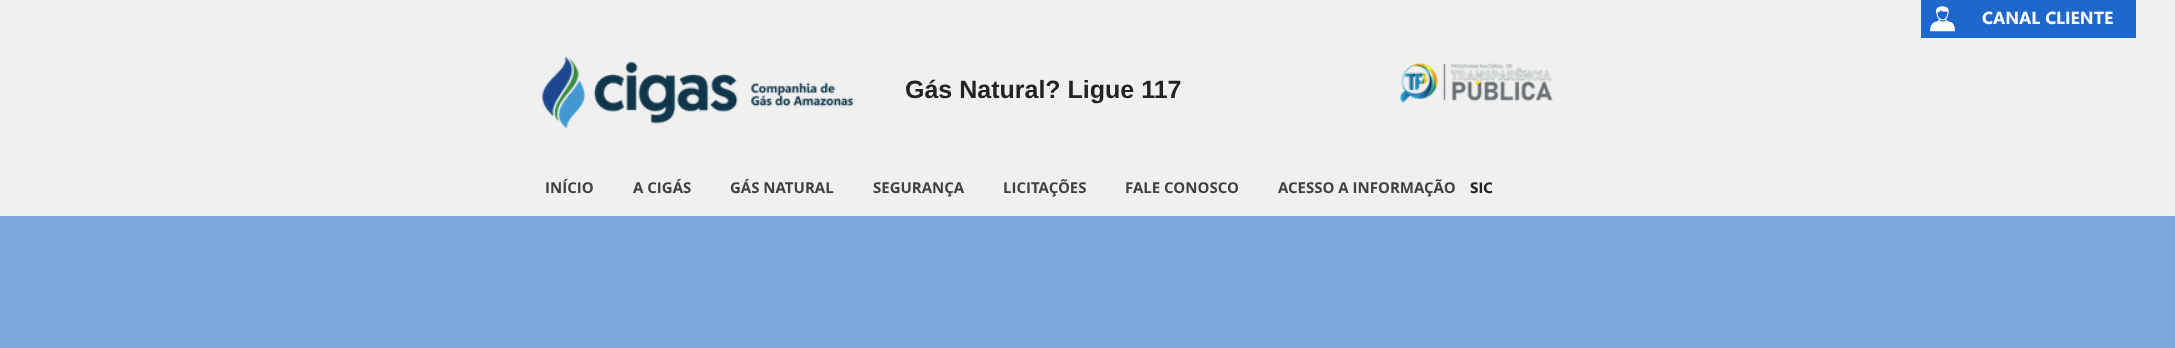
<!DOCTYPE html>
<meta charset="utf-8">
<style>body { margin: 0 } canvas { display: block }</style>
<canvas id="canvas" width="2175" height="348"></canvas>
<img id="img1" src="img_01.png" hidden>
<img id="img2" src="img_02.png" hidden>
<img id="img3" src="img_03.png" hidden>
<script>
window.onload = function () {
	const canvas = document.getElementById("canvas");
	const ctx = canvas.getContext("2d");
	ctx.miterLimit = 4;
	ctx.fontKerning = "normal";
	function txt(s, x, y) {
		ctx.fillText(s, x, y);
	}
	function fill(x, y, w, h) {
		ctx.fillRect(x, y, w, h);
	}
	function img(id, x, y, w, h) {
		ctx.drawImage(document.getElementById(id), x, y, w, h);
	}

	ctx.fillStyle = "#F0F0F0";
	fill(0, 0, 2175, 348);
	ctx.fillStyle = "#1E68CB";
	fill(1921, 0, 215, 38);
	img("img1", 1930, 6, 25, 26);
	img("img2", 541, 56, 313, 73);
	img("img3", 1399, 62, 154, 41);
	ctx.fillStyle = "#7EA7DC";
	fill(0, 216, 2175, 132);
	ctx.font = "bold 17.5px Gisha";
	ctx.fillStyle = "#FFFFFF";
	txt("CANAL CLIENTE", 1982, 24);
	ctx.font = "bold 25px Liberation Sans";
	ctx.fillStyle = "#242323";
	txt("Gás Natural? Ligue 117", 905, 98);
	ctx.font = "bold 15px Open Sans";
	ctx.fillStyle = "#414141";
	txt("INÍCIO", 545, 193);
	txt("A CIGÁS", 633, 193);
	txt("GÁS NATURAL", 730, 193);
	txt("SEGURANÇA", 873, 193);
	txt("LICITAÇÕES", 1003, 193);
	txt("FALE CONOSCO", 1125, 193);
	txt("ACESSO A INFORMAÇÃO", 1278, 193);
	ctx.font = "bold 15px Gisha";
	ctx.fillStyle = "#242323";
	txt("SIC", 1470, 193);
};
</script>
